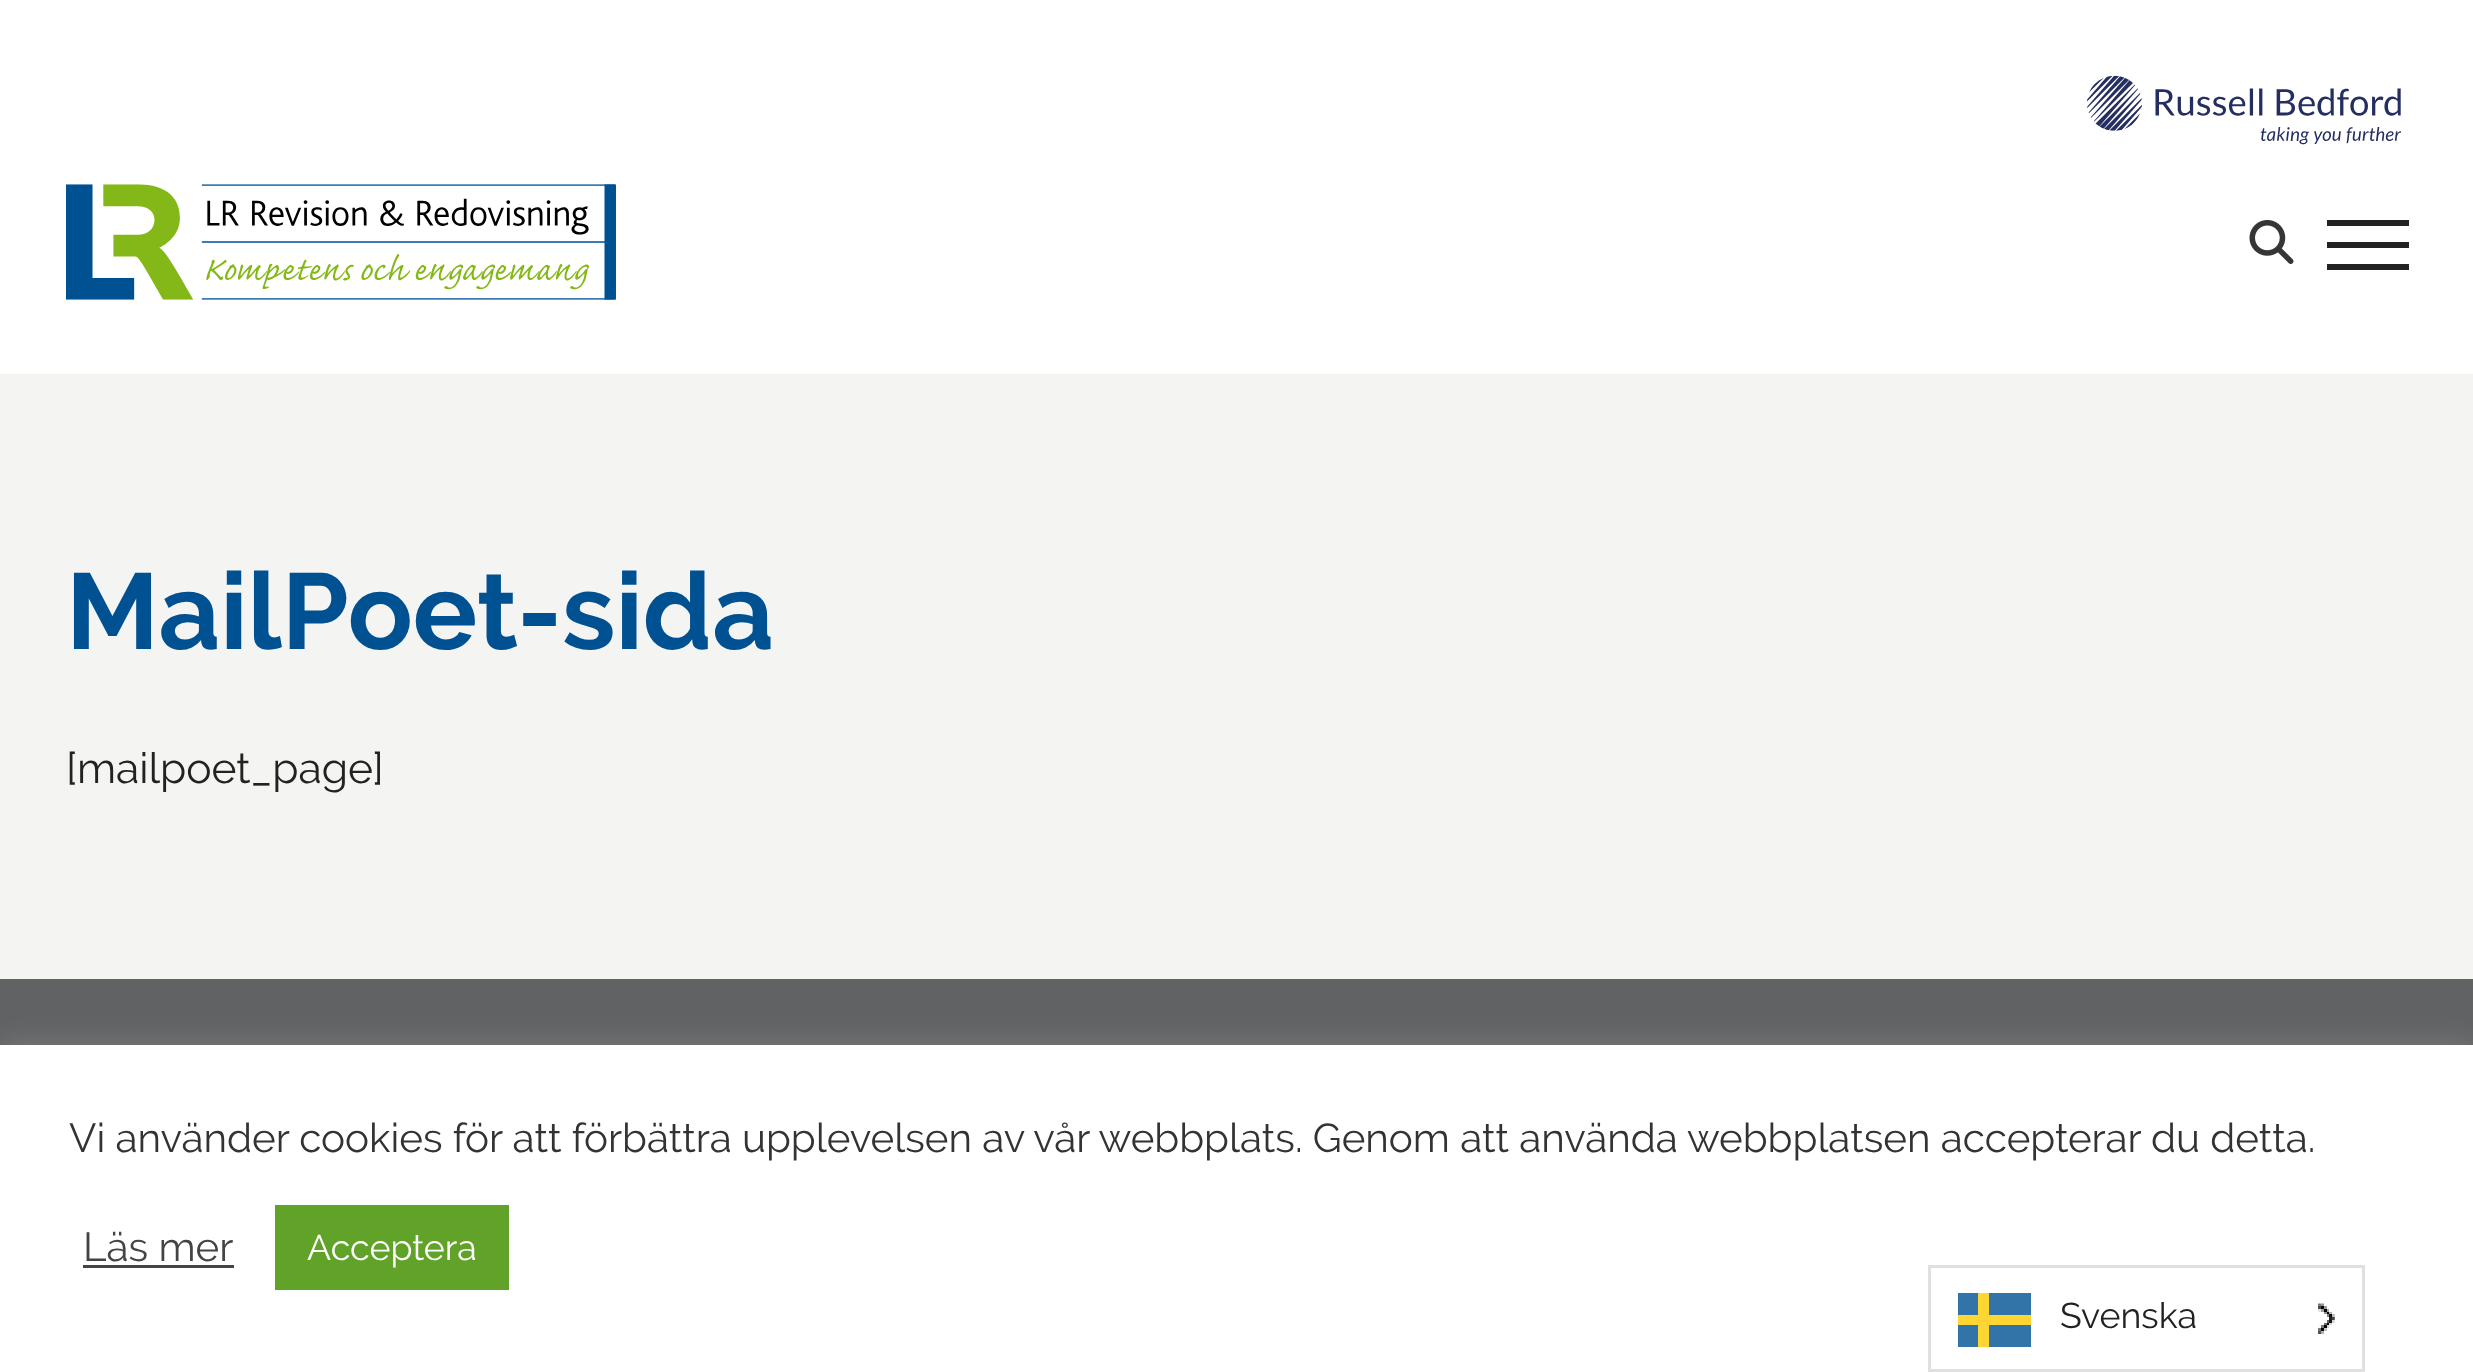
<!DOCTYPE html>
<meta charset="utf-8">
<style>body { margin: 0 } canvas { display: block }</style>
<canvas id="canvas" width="2473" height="1372"></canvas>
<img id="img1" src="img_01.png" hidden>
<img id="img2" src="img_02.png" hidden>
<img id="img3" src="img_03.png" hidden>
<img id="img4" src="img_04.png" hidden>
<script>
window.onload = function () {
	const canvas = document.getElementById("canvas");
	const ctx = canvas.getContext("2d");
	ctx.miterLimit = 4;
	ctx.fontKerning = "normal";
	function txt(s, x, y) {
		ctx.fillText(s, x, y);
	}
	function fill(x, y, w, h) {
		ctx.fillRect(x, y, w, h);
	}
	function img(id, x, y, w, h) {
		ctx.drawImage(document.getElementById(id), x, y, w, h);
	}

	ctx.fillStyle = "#F4F4F3";
	fill(0, 0, 2473, 1372);
	ctx.fillStyle = "#FFFFFF";
	fill(0, 0, 2473, 374);
	img("img1", 66, 184, 550, 116);
	img("img2", 2249, 220, 45, 44);
	ctx.fillStyle = "#222222";
	fill(2327, 220, 82, 6);
	fill(2327, 242, 82, 6);
	fill(2327, 264, 82, 6);
	img("img3", 2087, 75, 314, 70);
	ctx.fillStyle = "#616263";
	fill(0, 979, 2473, 66);
	ctx.fillStyle = "rgba(172, 171, 171, 0.3)";
	ctx.filter = "blur(14px)";
	ctx.beginPath();
	ctx.rect(0, 1042, 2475, 328);
	ctx.fill();
	ctx.filter = "none";
	ctx.fillStyle = "#FFFFFF";
	fill(0, 1045, 2473, 327);
	ctx.fillStyle = "#444444";
	fill(83, 1265, 151, 3);
	ctx.fillStyle = "#61A229";
	fill(275, 1205, 234, 85);
	ctx.strokeStyle = "#E0E0E0";
	ctx.lineWidth = 3;
	ctx.strokeRect(1929.5, 1266.5, 434, 104);
	ctx.fillStyle = "#005293";
	fill(1958, 1293, 73, 54);
	ctx.fillStyle = "#FECB00";
	ctx.beginPath();
	ctx.moveTo(1978, 1293);
	ctx.lineTo(1978, 1315);
	ctx.lineTo(1958, 1315);
	ctx.lineTo(1958, 1325);
	ctx.lineTo(1978, 1325);
	ctx.lineTo(1978, 1347);
	ctx.lineTo(1989, 1347);
	ctx.lineTo(1989, 1325);
	ctx.lineTo(2031, 1325);
	ctx.lineTo(2031, 1315);
	ctx.lineTo(1989, 1315);
	ctx.lineTo(1989, 1293);
	ctx.closePath();
	ctx.fill();
	ctx.fillStyle = "rgba(255, 255, 255, 0.2)";
	fill(1958, 1293, 73, 54);
	img("img4", 2318, 1303, 17, 31);
	ctx.font = "bold 107.5px Raleway";
	ctx.fillStyle = "#005192";
	txt("MailPoet-sida", 66, 649);
	ctx.font = "42.5px Raleway";
	ctx.fillStyle = "#222222";
	txt("[mailpoet_page]", 66, 783);
	ctx.font = "40.33px Raleway";
	ctx.fillStyle = "#333333";
	txt("Vi använder cookies för att förbättra upplevelsen av vår webbplats. Genom att använda webbplatsen accepterar du detta.", 69, 1152);
	ctx.fillStyle = "#444444";
	txt("Läs mer", 83, 1261);
	ctx.font = "35.75px Raleway";
	ctx.fillStyle = "#FFFFFF";
	txt("Acceptera", 307, 1260);
	ctx.fillStyle = "#222222";
	txt("Svenska", 2060, 1328);
};
</script>
